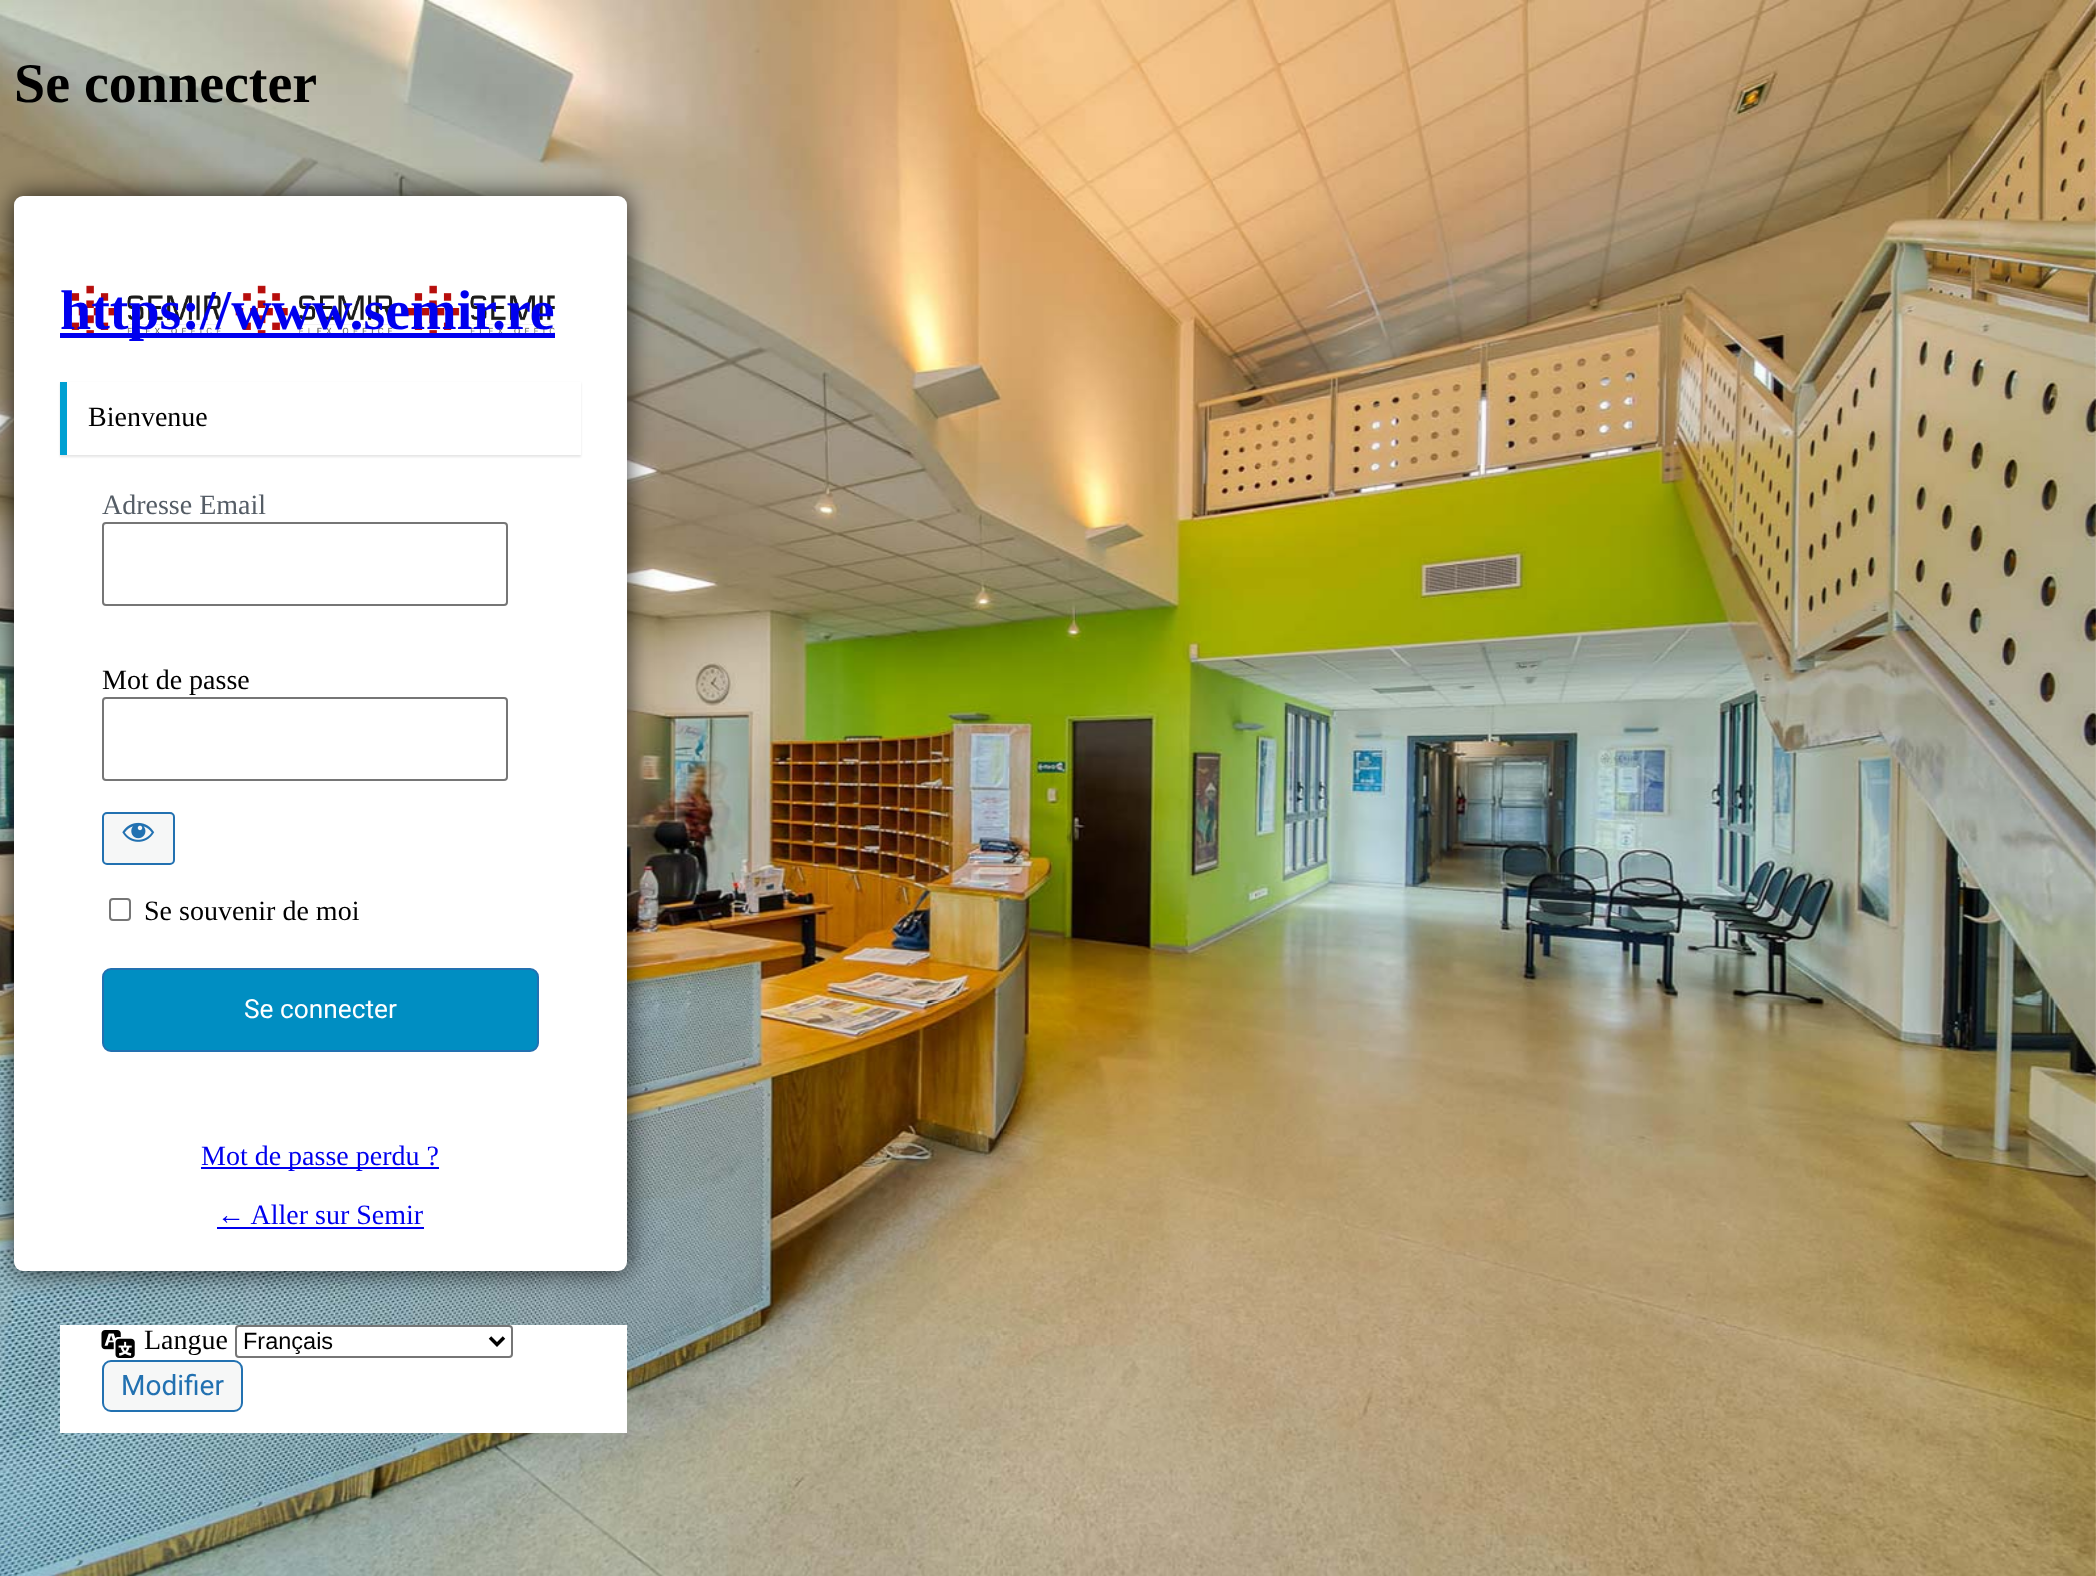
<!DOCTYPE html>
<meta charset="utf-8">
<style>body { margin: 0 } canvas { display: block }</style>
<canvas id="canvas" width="2096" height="1576"></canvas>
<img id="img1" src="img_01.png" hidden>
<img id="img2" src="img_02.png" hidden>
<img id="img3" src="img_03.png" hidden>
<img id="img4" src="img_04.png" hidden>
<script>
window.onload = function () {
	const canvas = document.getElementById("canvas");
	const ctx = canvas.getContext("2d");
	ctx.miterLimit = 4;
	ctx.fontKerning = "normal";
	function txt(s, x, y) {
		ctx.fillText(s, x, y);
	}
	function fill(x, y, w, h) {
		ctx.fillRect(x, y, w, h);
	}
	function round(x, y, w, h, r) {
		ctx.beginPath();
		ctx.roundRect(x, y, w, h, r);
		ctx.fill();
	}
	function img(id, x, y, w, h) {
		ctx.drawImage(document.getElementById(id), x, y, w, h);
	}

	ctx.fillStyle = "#FFFFFF";
	fill(0, 0, 2096, 1576);
	img("img1", 0, 0, 2096, 1576);
	ctx.fillStyle = "rgba(0, 0, 0, 0.8)";
	ctx.filter = "blur(13px)";
	ctx.beginPath();
	ctx.roundRect(14, 196, 613, 1075, 9);
	ctx.fill();
	ctx.filter = "none";
	ctx.fillStyle = "#FFFFFF";
	round(14, 196, 613, 1075, 9);
	img("img2", 64, 285, 491, 48);
	ctx.fillStyle = "#0000EE";
	fill(60, 333, 495, 5);
	ctx.save();
	ctx.beginPath();
	ctx.moveTo(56, 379);
	ctx.lineTo(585, 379);
	ctx.lineTo(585, 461);
	ctx.lineTo(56, 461);
	ctx.closePath();
	ctx.moveTo(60, 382);
	ctx.lineTo(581, 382);
	ctx.lineTo(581, 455);
	ctx.lineTo(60, 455);
	ctx.closePath();
	ctx.clip("evenodd");
	ctx.fillStyle = "rgba(0, 0, 0, 0.1)";
	ctx.filter = "blur(1px)";
	ctx.beginPath();
	ctx.rect(60, 383, 521, 74);
	ctx.fill();
	ctx.filter = "none";
	ctx.restore();
	ctx.fillStyle = "#00A0D2";
	fill(60, 382, 7, 73);
	ctx.beginPath();
	ctx.roundRect(103, 523, 404, 82, 3);
	ctx.strokeStyle = "#767676";
	ctx.lineWidth = 2;
	ctx.stroke();
	ctx.beginPath();
	ctx.roundRect(103, 698, 404, 82, 3);
	ctx.stroke();
	ctx.fillStyle = "#F6F7F7";
	ctx.beginPath();
	ctx.roundRect(103, 813, 71, 51, 4);
	ctx.fill();
	ctx.strokeStyle = "#2271B1";
	ctx.stroke();
	img("img3", 122, 822, 33, 20);
	ctx.beginPath();
	ctx.roundRect(110, 899, 20, 21, 3);
	ctx.strokeStyle = "#767676";
	ctx.stroke();
	ctx.fillStyle = "#008EC2";
	ctx.beginPath();
	ctx.roundRect(103, 969, 435, 82, 8);
	ctx.fill();
	ctx.strokeStyle = "#2271B1";
	ctx.stroke();
	ctx.fillStyle = "#0000EE";
	fill(201, 1167, 238, 2);
	fill(217, 1227, 207, 2);
	ctx.fillStyle = "#FFFFFF";
	fill(60, 1325, 567, 108);
	img("img4", 101, 1330, 34, 28);
	ctx.beginPath();
	ctx.roundRect(236, 1326, 276, 31, 3);
	ctx.strokeStyle = "#767676";
	ctx.stroke();
	ctx.beginPath();
	ctx.moveTo(490, 1337.5);
	ctx.lineTo(497, 1344.5);
	ctx.lineTo(504, 1337.5);
	ctx.strokeStyle = "#000000";
	ctx.lineWidth = 3.5;
	ctx.stroke();
	ctx.fillStyle = "#F6F7F7";
	ctx.beginPath();
	ctx.roundRect(103, 1361, 139, 50, 8);
	ctx.fill();
	ctx.strokeStyle = "#2271B1";
	ctx.lineWidth = 2;
	ctx.stroke();
	ctx.font = "bold 56px Liberation Serif";
	ctx.fillStyle = "#000000";
	txt("Se connecter", 14, 102);
	ctx.fillStyle = "#0000EE";
	txt("https://www.semir.re", 60, 329);
	ctx.font = "28px Liberation Serif";
	ctx.fillStyle = "#000000";
	txt("Bienvenue", 88, 426);
	ctx.fillStyle = "#555D66";
	txt("Adresse Email", 102, 514);
	ctx.fillStyle = "#000000";
	txt("Mot de passe", 102, 689);
	txt("Se souvenir de moi", 144, 920);
	ctx.font = "26.25px Roboto";
	ctx.fillStyle = "#FFFFFF";
	txt("Se connecter", 244, 1018);
	ctx.font = "28px Liberation Serif";
	ctx.fillStyle = "#0000EE";
	txt("Mot de passe perdu ?", 201, 1165);
	txt("← Aller sur Semir", 217, 1224);
	ctx.fillStyle = "#000000";
	txt("Langue", 144, 1349);
	ctx.font = "23.5px Liberation Sans";
	txt("Français", 243, 1349);
	ctx.font = "28px Roboto";
	ctx.fillStyle = "#2271B1";
	txt("Modifier", 121, 1395);
};
</script>
